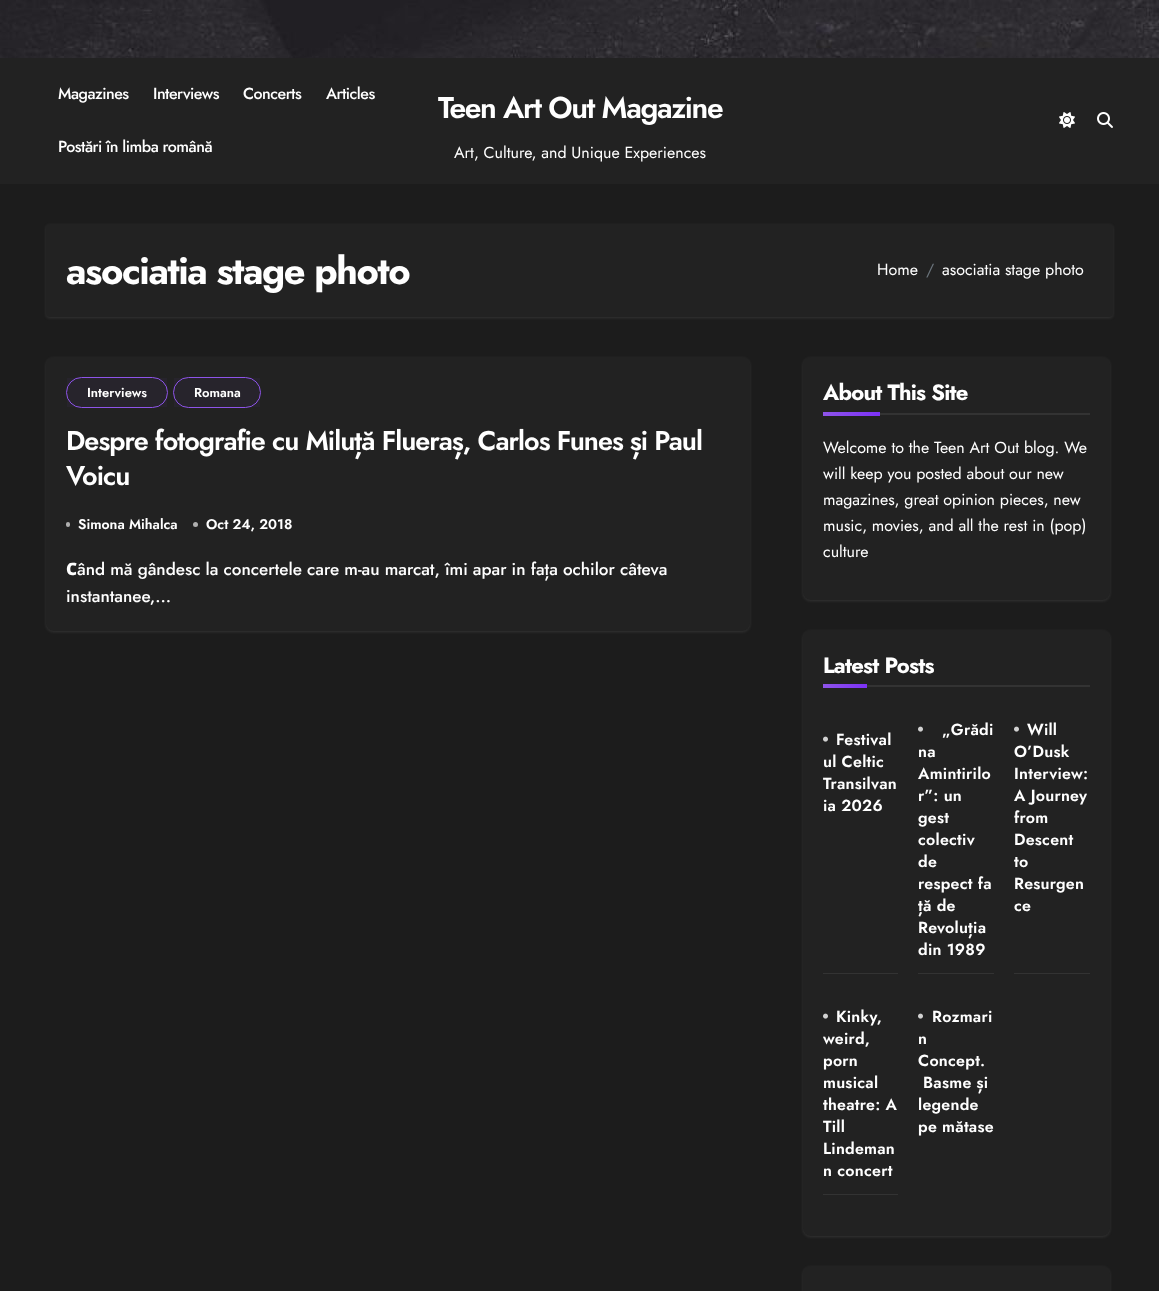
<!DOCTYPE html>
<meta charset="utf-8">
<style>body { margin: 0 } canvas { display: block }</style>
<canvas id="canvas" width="1159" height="1291"></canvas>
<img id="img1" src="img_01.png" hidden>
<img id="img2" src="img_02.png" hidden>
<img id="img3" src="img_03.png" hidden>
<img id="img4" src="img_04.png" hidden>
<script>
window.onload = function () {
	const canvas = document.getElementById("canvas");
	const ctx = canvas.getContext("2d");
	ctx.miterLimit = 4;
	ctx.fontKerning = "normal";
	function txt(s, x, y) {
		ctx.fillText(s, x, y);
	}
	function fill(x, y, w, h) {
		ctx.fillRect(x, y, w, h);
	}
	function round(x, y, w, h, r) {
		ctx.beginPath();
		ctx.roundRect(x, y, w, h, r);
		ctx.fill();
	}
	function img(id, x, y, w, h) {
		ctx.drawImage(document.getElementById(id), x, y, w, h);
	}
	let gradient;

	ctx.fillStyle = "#1C1C1C";
	fill(0, 0, 1159, 1291);
	img("img1", 0, 0, 1159, 58);
	ctx.fillStyle = "#222222";
	fill(0, 58, 1159, 126);
	img("img2", 1059, 112, 16, 16);
	img("img3", 1097, 112, 16, 16);
	ctx.fillStyle = "rgba(185, 185, 185, 0.15)";
	ctx.filter = "blur(1.5px)";
	ctx.beginPath();
	ctx.roundRect(46, 225, 1067, 93, 4);
	ctx.fill();
	ctx.filter = "none";
	ctx.fillStyle = "#222222";
	round(46, 224, 1067, 93, 4);
	ctx.fillStyle = "rgba(185, 185, 185, 0.15)";
	ctx.filter = "blur(1.5px)";
	ctx.beginPath();
	ctx.roundRect(46, 358, 704, 274, 8);
	ctx.fill();
	ctx.filter = "none";
	ctx.fillStyle = "#222222";
	round(46, 357, 704, 274, 8);
	ctx.beginPath();
	ctx.roundRect(66.5, 377.5, 101, 30, 15);
	ctx.strokeStyle = "#8E54E9";
	ctx.stroke();
	ctx.fillStyle = "rgba(142, 84, 233, 0.05)";
	fill(67, 378, 100, 29);
	ctx.beginPath();
	ctx.roundRect(173.5, 377.5, 87, 30, 15);
	ctx.stroke();
	fill(174, 378, 86, 29);
	ctx.fillStyle = "#AFAFAF";
	round(66, 522, 4, 5, 2);
	ctx.beginPath();
	ctx.arc(195.5, 524.5, 2.5, 0, Math.PI * 2);
	ctx.fill();
	ctx.fillStyle = "rgba(185, 185, 185, 0.15)";
	ctx.filter = "blur(1.5px)";
	ctx.beginPath();
	ctx.roundRect(803, 358, 307, 243, 8);
	ctx.fill();
	ctx.filter = "none";
	ctx.fillStyle = "#222222";
	round(803, 357, 307, 243, 8);
	ctx.fillStyle = "#333333";
	fill(880, 413, 210, 2);
	gradient = ctx.createLinearGradient(823, 414, 880, 414);
	gradient.addColorStop(0, "#8E54E9");
	gradient.addColorStop(1, "#7C31F7");
	ctx.fillStyle = gradient;
	fill(823, 412, 57, 4);
	ctx.fillStyle = "rgba(185, 185, 185, 0.15)";
	ctx.filter = "blur(1.5px)";
	ctx.beginPath();
	ctx.roundRect(803, 631, 307, 606, 8);
	ctx.fill();
	ctx.filter = "none";
	ctx.fillStyle = "#222222";
	round(803, 630, 307, 606, 8);
	ctx.fillStyle = "#333333";
	fill(867, 685, 223, 2);
	gradient = ctx.createLinearGradient(823, 686, 867, 686);
	gradient.addColorStop(0, "#8E54E9");
	gradient.addColorStop(1, "#7C31F7");
	ctx.fillStyle = gradient;
	fill(823, 684, 44, 4);
	ctx.fillStyle = "#333333";
	fill(823, 973, 75, 1);
	img("img4", 823, 736, 5, 6);
	fill(918, 973, 76, 1);
	img("img4", 918, 726, 5, 6);
	fill(1014, 973, 76, 1);
	img("img4", 1014, 726, 5, 6);
	fill(823, 1194, 75, 1);
	img("img4", 823, 1013, 5, 6);
	img("img4", 918, 1013, 5, 6);
	ctx.fillStyle = "rgba(185, 185, 185, 0.15)";
	ctx.filter = "blur(1.5px)";
	ctx.beginPath();
	ctx.roundRect(803, 1267, 307, 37, 8);
	ctx.fill();
	ctx.filter = "none";
	ctx.fillStyle = "#222222";
	round(803, 1266, 307, 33, 8);
	ctx.letterSpacing = "-0.5px";
	ctx.font = "500 16px Jost";
	ctx.fillStyle = "#FFFFFF";
	txt("Magazines", 58, 99);
	txt("Interviews", 153, 99);
	txt("Concerts", 243, 99);
	txt("Articles", 326, 99);
	txt("Postări în limba română", 58, 152);
	ctx.letterSpacing = "-1.4px";
	ctx.font = "600 30px Jost";
	txt("Teen Art Out Magazine", 438, 118);
	ctx.letterSpacing = "0px";
	ctx.font = "16px Jost";
	txt("Art, Culture, and Unique Experiences", 454, 158);
	ctx.letterSpacing = "-1.4px";
	ctx.font = "bold 38px Jost";
	txt("asociatia stage photo", 66, 284);
	ctx.letterSpacing = "0px";
	ctx.font = "16px Jost";
	txt("Home", 877, 275);
	ctx.fillStyle = "#6C757D";
	txt("/", 926, 275);
	ctx.fillStyle = "#FFFFFF";
	txt("asociatia stage photo", 942, 275);
	ctx.font = "600 13px Jost";
	txt("Interviews", 87, 397);
	txt("Romana", 194, 397);
	ctx.letterSpacing = "-0.97px";
	ctx.font = "600 27px Jost";
	txt("Despre fotografie cu Miluță Flueraș, Carlos Funes și Paul", 66, 450);
	txt("Voicu", 66, 485);
	ctx.letterSpacing = "0px";
	ctx.font = "600 14px Jost";
	txt("Simona Mihalca", 78, 529);
	txt("Oct 24, 2018", 206, 529);
	ctx.font = "900 17.1px Noto Sans";
	txt("C", 66, 575);
	ctx.font = "500 17.1px Jost";
	txt("ând mă gândesc la concertele care m-au marcat, îmi apar in fața ochilor câteva", 77, 575);
	txt("instantanee,...", 66, 602);
	ctx.letterSpacing = "-0.75px";
	ctx.font = "bold 22px Jost";
	txt("About This Site", 823, 400);
	ctx.letterSpacing = "0px";
	ctx.font = "16px Jost";
	txt("Welcome to the Teen Art Out blog. We", 823, 453);
	txt("will keep you posted about our new", 823, 479);
	txt("magazines, great opinion pieces, new", 823, 505);
	txt("music, movies, and all the rest in (pop)", 823, 531);
	txt("culture", 823, 557);
	ctx.letterSpacing = "-0.75px";
	ctx.font = "bold 22px Jost";
	txt("Latest Posts", 823, 673);
	ctx.letterSpacing = "0.25px";
	ctx.font = "600 16px Jost";
	txt("Festival", 836, 745);
	txt("ul Celtic", 823, 767);
	txt("Transilvan", 823, 789);
	txt("ia 2026", 823, 811);
	txt("„Grădi", 942, 735);
	txt("na", 918, 757);
	txt("Amintirilo", 918, 779);
	txt("r”: un", 918, 801);
	txt("gest", 918, 823);
	txt("colectiv", 918, 845);
	txt("de", 918, 867);
	txt("respect fa", 918, 889);
	txt("ță de", 918, 911);
	txt("Revoluția", 918, 933);
	txt("din 1989", 918, 955);
	txt("Will", 1027, 735);
	txt("O’Dusk", 1014, 757);
	txt("Interview:", 1014, 779);
	txt("A Journey", 1014, 801);
	txt("from", 1014, 823);
	txt("Descent", 1014, 845);
	txt("to", 1014, 867);
	txt("Resurgen", 1014, 889);
	txt("ce", 1014, 911);
	txt("Kinky,", 836, 1022);
	txt("weird,", 823, 1044);
	txt("porn", 823, 1066);
	txt("musical", 823, 1088);
	ctx.save();
	ctx.beginPath();
	ctx.rect(823, 994, 75, 200);
	ctx.clip();
	txt("theatre: A", 823, 1110);
	ctx.restore();
	txt("Till", 823, 1132);
	txt("Lindeman", 823, 1154);
	txt("n concert", 823, 1176);
	txt("Rozmari", 932, 1022);
	txt("n", 918, 1044);
	txt("Concept.", 918, 1066);
	txt("Basme și", 923, 1088);
	txt("legende", 918, 1110);
	txt("pe mătase", 918, 1132);
};
</script>
